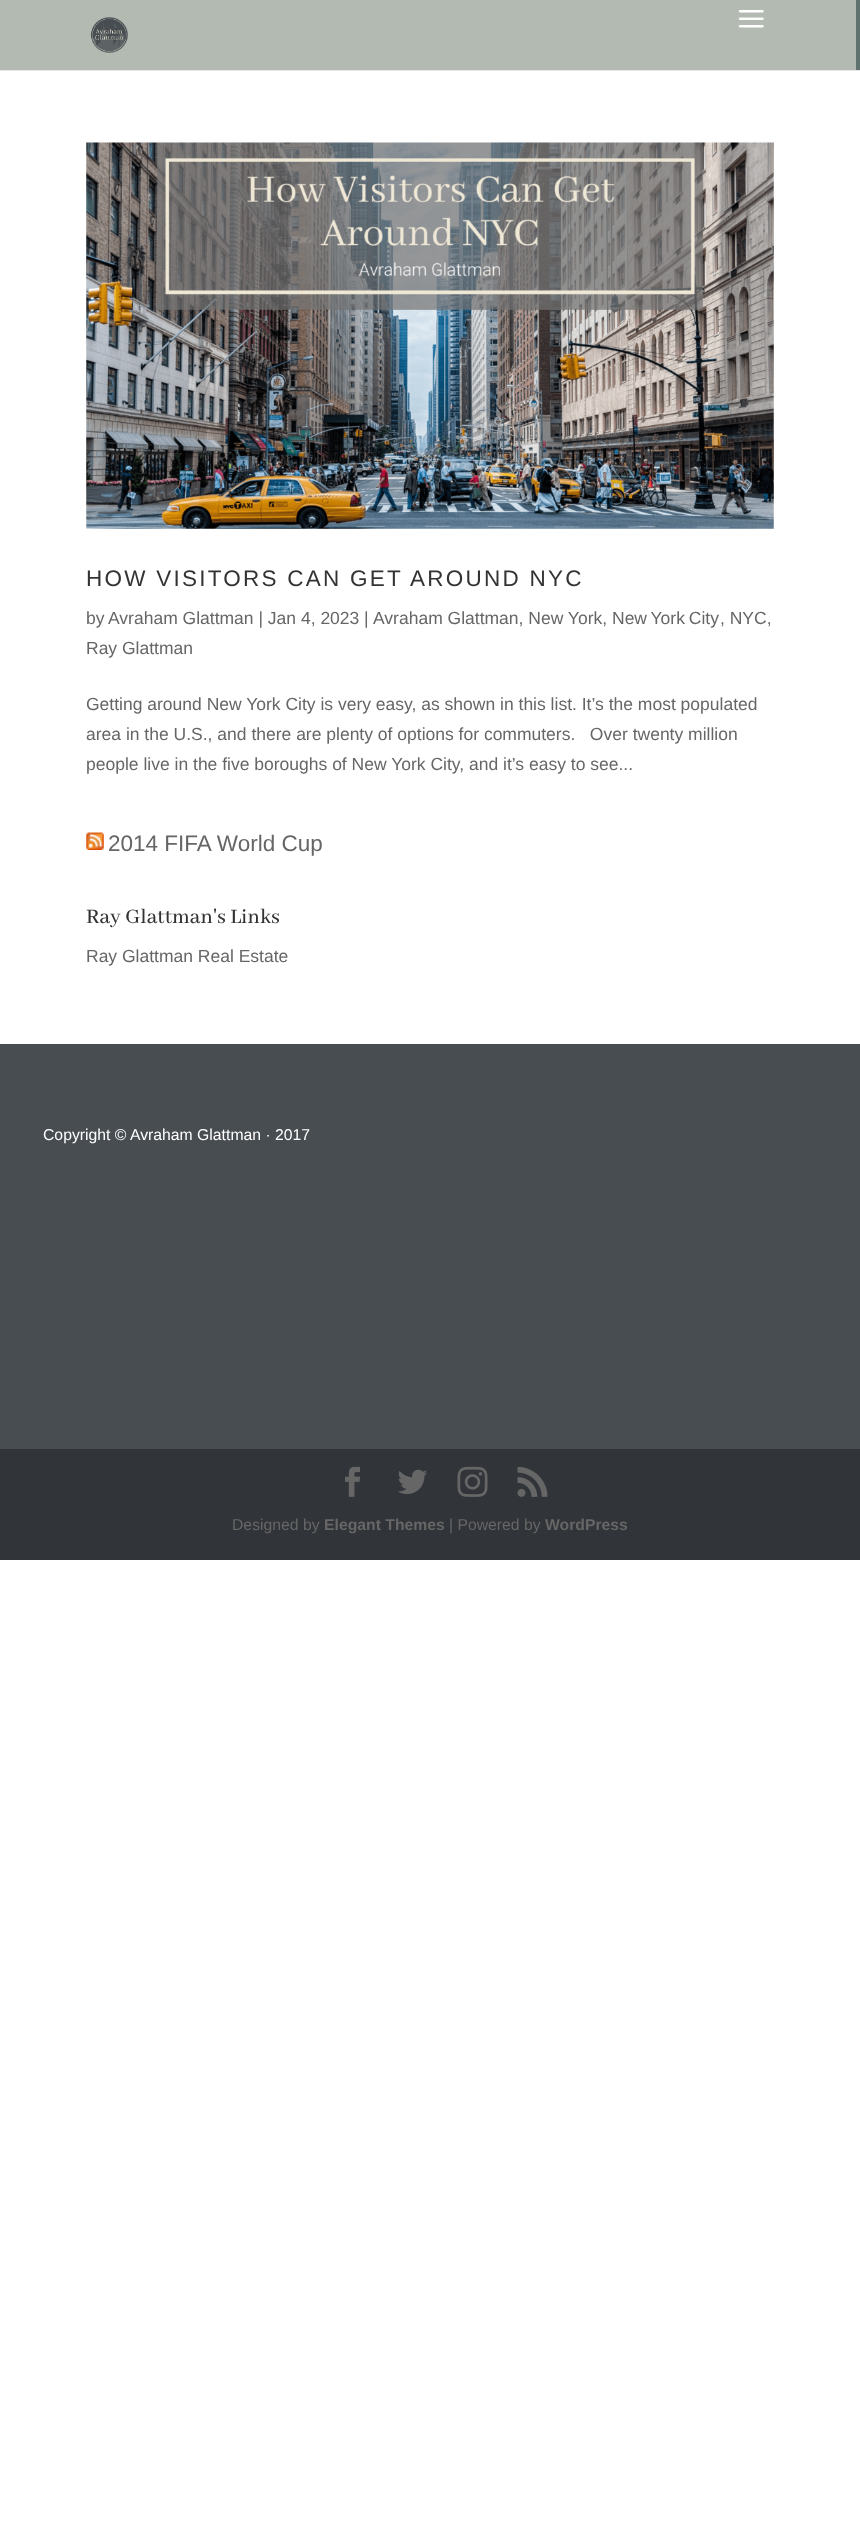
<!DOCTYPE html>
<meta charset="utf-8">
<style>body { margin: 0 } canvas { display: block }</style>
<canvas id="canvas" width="860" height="2522"></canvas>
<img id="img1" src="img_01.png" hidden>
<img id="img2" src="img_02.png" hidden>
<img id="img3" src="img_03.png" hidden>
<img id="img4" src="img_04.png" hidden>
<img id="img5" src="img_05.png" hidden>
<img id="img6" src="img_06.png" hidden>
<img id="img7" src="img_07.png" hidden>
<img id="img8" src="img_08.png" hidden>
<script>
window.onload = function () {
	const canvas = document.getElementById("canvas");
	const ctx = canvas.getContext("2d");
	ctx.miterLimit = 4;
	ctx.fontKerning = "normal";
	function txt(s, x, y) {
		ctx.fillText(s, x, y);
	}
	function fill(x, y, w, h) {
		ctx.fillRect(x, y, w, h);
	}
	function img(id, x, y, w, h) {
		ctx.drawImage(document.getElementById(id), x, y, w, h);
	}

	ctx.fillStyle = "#FFFFFF";
	fill(0, 0, 860, 2522);
	ctx.fillStyle = "#E6E6E6";
	fill(0, 70, 860, 1);
	ctx.fillStyle = "#B2BAB1";
	fill(0, 0, 856, 70);
	ctx.fillStyle = "#5F726E";
	fill(856, 0, 4, 70);
	img("img1", 90, 17, 38, 36);
	img("img2", 738, 10, 26, 18);
	img("img3", 86, 142, 688, 387);
	img("img4", 86, 832, 18, 18);
	ctx.fillStyle = "#484D52";
	fill(0, 1044, 860, 405);
	ctx.fillStyle = "#313438";
	fill(0, 1449, 860, 111);
	img("img5", 345, 1466, 15, 31);
	img("img6", 398, 1469, 30, 25);
	img("img7", 457, 1466, 31, 31);
	img("img8", 517, 1467, 31, 30);
	ctx.letterSpacing = "2.25px";
	ctx.font = "22.5px Liberation Sans";
	ctx.fillStyle = "#333333";
	txt("HOW VISITORS CAN GET AROUND NYC", 86, 586);
	ctx.letterSpacing = "0px";
	ctx.font = "17.5px Liberation Sans";
	ctx.fillStyle = "#666666";
	txt("by", 86, 624);
	txt("Avraham Glattman | Jan 4, 2023", 108, 624);
	txt("|", 364, 624);
	txt("Avraham Glattman, New York,", 373, 624);
	ctx.wordSpacing = "-1px";
	txt("New York City", 612, 624);
	ctx.wordSpacing = "0px";
	txt(", NYC,", 720, 624);
	txt("Ray Glattman", 86, 654);
	txt("Getting around New York City is very easy, as shown in this list. It’s the most populated", 86, 710);
	txt("area in the U.S., and there are plenty of options for commuters.   Over twenty million", 86, 740);
	txt("people live in the five boroughs of New York City, and it’s easy to see...", 86, 770);
	ctx.font = "22.5px Liberation Sans";
	txt("2014 FIFA World Cup", 108, 851);
	ctx.font = "500 22.5px Abhaya Libre Medium";
	ctx.fillStyle = "#333333";
	txt("Ray Glattman's Links", 86, 923);
	ctx.font = "17.5px Liberation Sans";
	ctx.fillStyle = "#666666";
	txt("Ray Glattman Real Estate", 86, 962);
	ctx.font = "15.75px Liberation Sans";
	ctx.fillStyle = "#FFFFFF";
	txt("Copyright ©", 43, 1140);
	txt("Avraham Glattman · 2017", 130, 1140);
	ctx.fillStyle = "#666666";
	txt("Designed by", 232, 1530);
	ctx.font = "bold 15.75px Liberation Sans";
	txt("Elegant Themes", 324, 1530);
	ctx.font = "15.75px Liberation Sans";
	txt("| Powered by", 449, 1530);
	ctx.font = "bold 15.75px Liberation Sans";
	txt("WordPress", 545, 1530);
};
</script>
